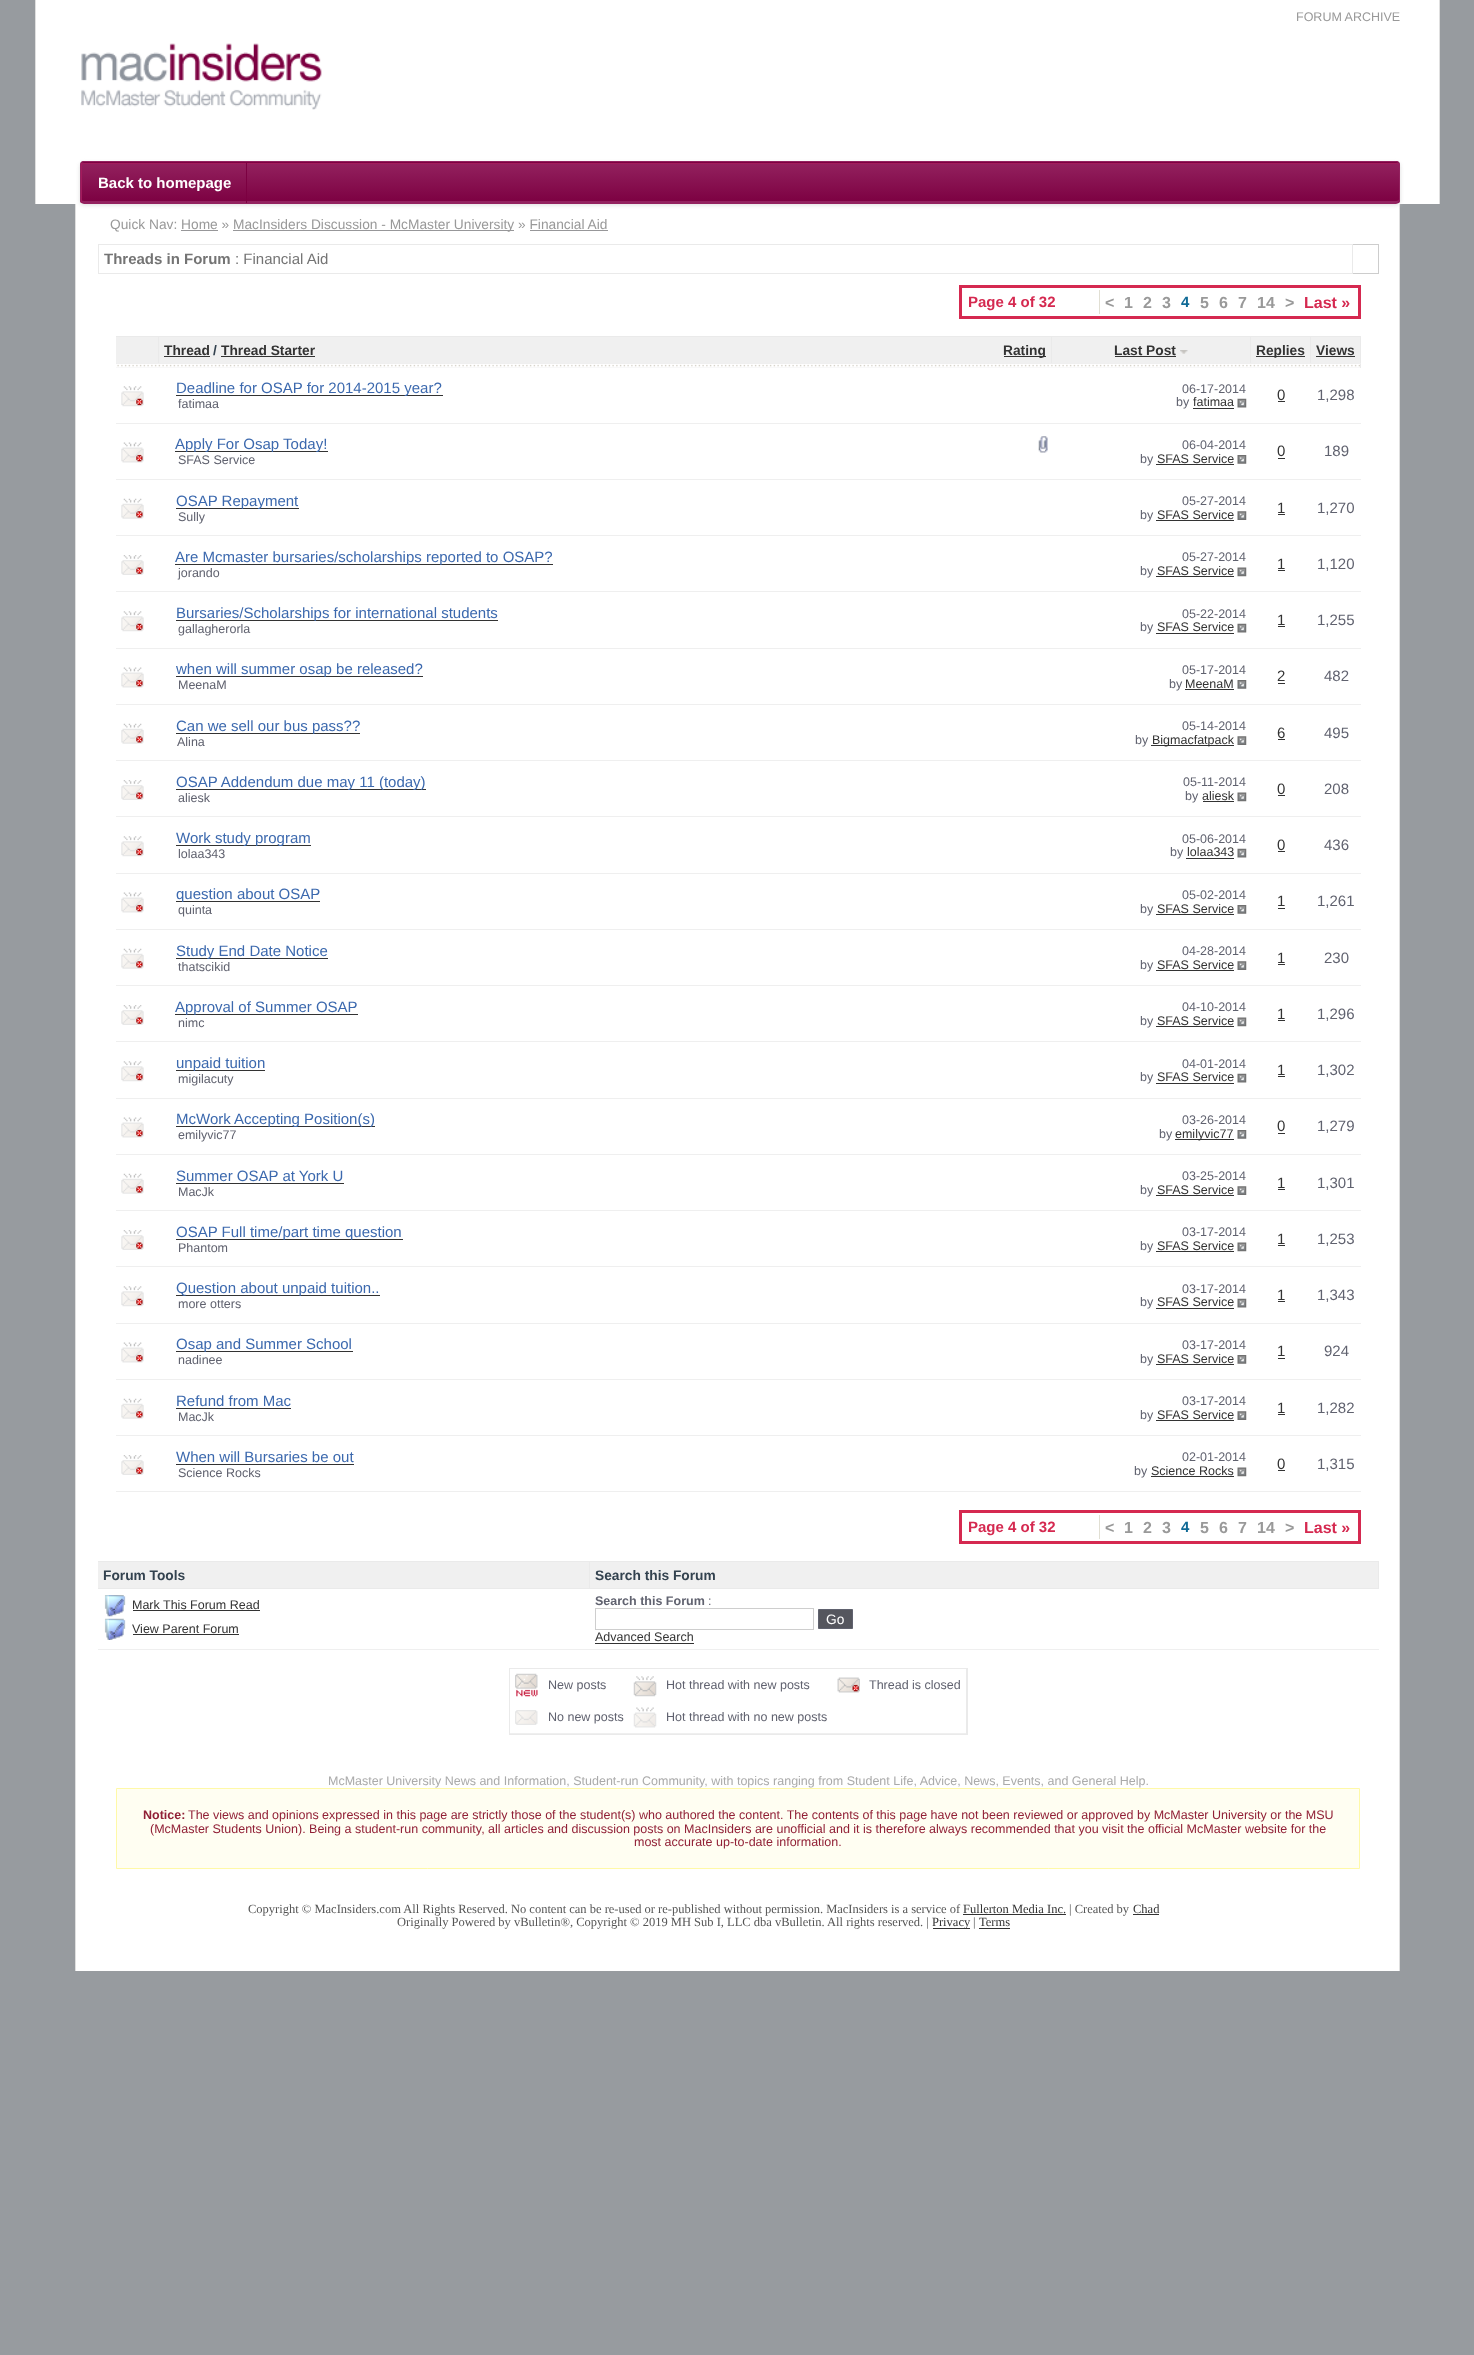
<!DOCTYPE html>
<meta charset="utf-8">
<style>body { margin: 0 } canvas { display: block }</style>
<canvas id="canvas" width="1474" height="2355"></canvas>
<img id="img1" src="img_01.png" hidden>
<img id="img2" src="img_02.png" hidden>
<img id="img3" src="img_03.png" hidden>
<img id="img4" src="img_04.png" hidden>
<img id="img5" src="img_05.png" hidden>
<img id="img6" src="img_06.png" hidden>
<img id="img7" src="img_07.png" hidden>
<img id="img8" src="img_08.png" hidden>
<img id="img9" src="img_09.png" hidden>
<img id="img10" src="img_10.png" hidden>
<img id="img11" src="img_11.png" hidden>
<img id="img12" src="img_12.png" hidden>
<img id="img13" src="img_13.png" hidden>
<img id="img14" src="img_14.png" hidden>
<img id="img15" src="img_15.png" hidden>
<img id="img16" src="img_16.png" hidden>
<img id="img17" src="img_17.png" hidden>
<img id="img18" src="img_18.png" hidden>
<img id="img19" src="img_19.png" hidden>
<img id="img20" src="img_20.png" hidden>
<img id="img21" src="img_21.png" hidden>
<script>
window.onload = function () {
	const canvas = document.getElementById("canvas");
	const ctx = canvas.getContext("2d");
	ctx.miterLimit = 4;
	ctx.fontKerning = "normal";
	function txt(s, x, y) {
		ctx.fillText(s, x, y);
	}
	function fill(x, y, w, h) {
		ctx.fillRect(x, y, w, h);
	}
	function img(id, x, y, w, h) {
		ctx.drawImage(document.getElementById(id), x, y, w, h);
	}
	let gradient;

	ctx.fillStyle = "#979B9F";
	fill(0, 0, 1474, 2355);
	ctx.fillStyle = "#FFFFFF";
	fill(36, 0, 1403, 204);
	ctx.fillStyle = "#DFDFDF";
	fill(1439, 0, 1, 204);
	fill(35, 0, 1, 204);
	img("img1", 81, 43, 241, 67);
	ctx.fillStyle = "#FFFFFF";
	fill(76, 204, 1323, 1767);
	ctx.fillStyle = "#DFDFDF";
	fill(1399, 204, 1, 1767);
	fill(75, 204, 1, 1767);
	ctx.fillStyle = "#DDDDDD";
	ctx.filter = "blur(2px)";
	ctx.beginPath();
	ctx.roundRect(80, 163, 1320, 42, 4);
	ctx.fill();
	ctx.filter = "none";
	ctx.save();
	ctx.beginPath();
	ctx.roundRect(80, 161, 1320, 43, 4);
	ctx.clip();
	gradient = ctx.createLinearGradient(740, 122, 740, 163);
	gradient.addColorStop(0, "#93225F");
	gradient.addColorStop(1, "#7C0041");
	ctx.fillStyle = gradient;
	fill(80, 161, 1320, 2);
	gradient = ctx.createLinearGradient(740, 162, 740, 203);
	gradient.addColorStop(0, "#93225F");
	gradient.addColorStop(1, "#7C0041");
	ctx.fillStyle = gradient;
	fill(80, 163, 1320, 40);
	ctx.restore();
	ctx.fillStyle = "#93225F";
	ctx.beginPath();
	ctx.moveTo(81, 199);
	ctx.lineTo(81, 200);
	ctx.bezierCurveTo(81, 202, 82, 203, 84, 203);
	ctx.lineTo(1396, 203);
	ctx.bezierCurveTo(1398, 203, 1399, 202, 1399, 200);
	ctx.lineTo(1399, 199);
	ctx.bezierCurveTo(1399, 200, 1398, 201, 1396, 201);
	ctx.lineTo(84, 201);
	ctx.bezierCurveTo(82, 201, 81, 200, 81, 199);
	ctx.closePath();
	ctx.fill();
	ctx.fillStyle = "#A31B5C";
	ctx.beginPath();
	ctx.moveTo(84, 164);
	ctx.lineTo(1396, 164);
	ctx.bezierCurveTo(1398, 164, 1399, 165, 1399, 166);
	ctx.bezierCurveTo(1399, 164, 1398, 163, 1396, 163);
	ctx.lineTo(84, 163);
	ctx.bezierCurveTo(82, 163, 81, 164, 81, 166);
	ctx.bezierCurveTo(81, 165, 82, 164, 84, 164);
	ctx.closePath();
	ctx.fill();
	ctx.beginPath();
	ctx.roundRect(80.5, 161.5, 1319, 42, 3.5);
	ctx.strokeStyle = "#93225F";
	ctx.stroke();
	ctx.fillStyle = "#7C0041";
	fill(246, 163, 1, 40);
	ctx.fillStyle = "#A31B5C";
	fill(81, 163, 1, 40);
	ctx.fillStyle = "#979799";
	fill(233, 230, 281, 1);
	ctx.strokeStyle = "#EAEAEA";
	ctx.strokeRect(98.5, 244.5, 1254, 29);
	ctx.fillStyle = "#CDCDCD";
	fill(1353, 244, 26, 1);
	fill(1378, 244, 1, 30);
	fill(1353, 273, 26, 1);
	ctx.strokeStyle = "#D52950";
	ctx.lineWidth = 3;
	ctx.strokeRect(960.5, 286.5, 399, 31);
	ctx.fillStyle = "#E1DFD3";
	fill(1099, 290, 1, 24);
	ctx.fillStyle = "#F0F0F0";
	fill(116, 337, 42, 26);
	ctx.fillStyle = "#EAEAEA";
	fill(116, 336, 1245, 1);
	fill(158, 336, 1, 28);
	fill(116, 363, 43, 1);
	ctx.fillStyle = "#F0F0F0";
	fill(159, 337, 1091, 26);
	ctx.fillStyle = "#EAEAEA";
	fill(1051, 336, 1, 28);
	fill(159, 363, 894, 1);
	ctx.fillStyle = "#333333";
	fill(164, 356, 46, 1);
	fill(221, 356, 94, 1);
	fill(1004, 356, 42, 1);
	ctx.fillStyle = "#EAEAEA";
	fill(1250, 336, 1, 28);
	fill(1053, 363, 198, 1);
	ctx.fillStyle = "#333333";
	fill(1115, 356, 61, 1);
	img("img2", 1180, 350, 8, 4);
	ctx.fillStyle = "#F0F0F0";
	fill(1251, 337, 59, 26);
	ctx.fillStyle = "#EAEAEA";
	fill(1310, 336, 1, 28);
	fill(1251, 363, 60, 1);
	ctx.fillStyle = "#333333";
	fill(1256, 356, 49, 1);
	ctx.fillStyle = "#F0F0F0";
	fill(1311, 337, 49, 26);
	ctx.fillStyle = "#EAEAEA";
	fill(1360, 336, 1, 28);
	fill(1311, 363, 50, 1);
	ctx.fillStyle = "#333333";
	fill(1316, 356, 39, 1);
	ctx.fillStyle = "#F8F8F8";
	fill(116, 364, 1245, 4);
	img("img3", 116, 363, 1245, 4);
	ctx.fillStyle = "#EAEAEA";
	fill(1360, 364, 1, 4);
	ctx.fillStyle = "#333333";
	fill(176, 395, 267, 1);
	fill(1193, 408, 41, 1);
	img("img4", 1237, 398, 10, 10);
	ctx.fillStyle = "#EFEFEF";
	fill(116, 423, 1245, 1);
	img("img5", 121, 386, 23, 21);
	ctx.fillStyle = "#333333";
	fill(1278, 401, 7, 1);
	fill(175, 451, 153, 1);
	img("img6", 1038, 436, 10, 17);
	fill(1156, 464, 78, 1);
	img("img7", 1237, 455, 10, 9);
	ctx.fillStyle = "#EFEFEF";
	fill(116, 479, 1245, 1);
	img("img8", 121, 442, 23, 21);
	ctx.fillStyle = "#333333";
	fill(1278, 458, 7, 1);
	fill(176, 508, 123, 1);
	fill(1156, 520, 78, 1);
	img("img9", 1237, 511, 10, 9);
	ctx.fillStyle = "#EFEFEF";
	fill(116, 535, 1245, 1);
	img("img10", 121, 498, 23, 21);
	ctx.fillStyle = "#333333";
	fill(1278, 514, 7, 1);
	fill(175, 564, 378, 1);
	fill(1156, 576, 78, 1);
	img("img11", 1237, 567, 10, 10);
	ctx.fillStyle = "#EFEFEF";
	fill(116, 591, 1245, 1);
	img("img12", 121, 555, 23, 20);
	ctx.fillStyle = "#333333";
	fill(1278, 570, 7, 1);
	fill(176, 620, 322, 1);
	fill(1156, 633, 78, 1);
	img("img4", 1237, 623, 10, 10);
	ctx.fillStyle = "#EFEFEF";
	fill(116, 648, 1245, 1);
	img("img5", 121, 611, 23, 21);
	ctx.fillStyle = "#333333";
	fill(1278, 626, 7, 1);
	fill(176, 676, 247, 1);
	fill(1185, 689, 49, 1);
	img("img7", 1237, 680, 10, 9);
	ctx.fillStyle = "#EFEFEF";
	fill(116, 704, 1245, 1);
	img("img8", 121, 667, 23, 21);
	ctx.fillStyle = "#333333";
	fill(1278, 683, 7, 1);
	fill(176, 733, 184, 1);
	fill(1151, 745, 83, 1);
	img("img9", 1237, 736, 10, 9);
	ctx.fillStyle = "#EFEFEF";
	fill(116, 760, 1245, 1);
	img("img10", 121, 723, 23, 21);
	ctx.fillStyle = "#333333";
	fill(1278, 739, 7, 1);
	fill(176, 789, 250, 1);
	fill(1203, 801, 31, 1);
	img("img11", 1237, 792, 10, 10);
	ctx.fillStyle = "#EFEFEF";
	fill(116, 816, 1245, 1);
	img("img13", 121, 780, 23, 20);
	ctx.fillStyle = "#333333";
	fill(1278, 795, 7, 1);
	fill(176, 845, 135, 1);
	fill(1186, 858, 48, 1);
	img("img4", 1237, 848, 10, 10);
	ctx.fillStyle = "#EFEFEF";
	fill(116, 873, 1245, 1);
	img("img5", 121, 836, 23, 21);
	ctx.fillStyle = "#333333";
	fill(1278, 851, 7, 1);
	fill(176, 901, 144, 1);
	fill(1156, 914, 78, 1);
	img("img7", 1237, 905, 10, 9);
	ctx.fillStyle = "#EFEFEF";
	fill(116, 929, 1245, 1);
	img("img8", 121, 892, 23, 21);
	ctx.fillStyle = "#333333";
	fill(1278, 908, 7, 1);
	fill(176, 958, 152, 1);
	fill(1156, 970, 78, 1);
	img("img9", 1237, 961, 10, 9);
	ctx.fillStyle = "#EFEFEF";
	fill(116, 985, 1245, 1);
	img("img10", 121, 948, 23, 21);
	ctx.fillStyle = "#333333";
	fill(1278, 964, 7, 1);
	fill(175, 1014, 183, 1);
	fill(1156, 1026, 78, 1);
	img("img11", 1237, 1017, 10, 10);
	ctx.fillStyle = "#EFEFEF";
	fill(116, 1041, 1245, 1);
	img("img12", 121, 1005, 23, 20);
	ctx.fillStyle = "#333333";
	fill(1278, 1020, 7, 1);
	fill(176, 1070, 89, 1);
	fill(1156, 1083, 78, 1);
	img("img4", 1237, 1073, 10, 10);
	ctx.fillStyle = "#EFEFEF";
	fill(116, 1098, 1245, 1);
	img("img5", 121, 1061, 23, 21);
	ctx.fillStyle = "#333333";
	fill(1278, 1076, 7, 1);
	fill(176, 1126, 199, 1);
	fill(1175, 1139, 59, 1);
	img("img7", 1237, 1130, 10, 9);
	ctx.fillStyle = "#EFEFEF";
	fill(116, 1154, 1245, 1);
	img("img8", 121, 1117, 23, 21);
	ctx.fillStyle = "#333333";
	fill(1278, 1133, 7, 1);
	fill(176, 1183, 168, 1);
	fill(1156, 1195, 78, 1);
	img("img9", 1237, 1186, 10, 9);
	ctx.fillStyle = "#EFEFEF";
	fill(116, 1210, 1245, 1);
	img("img14", 121, 1173, 23, 21);
	ctx.fillStyle = "#333333";
	fill(1278, 1189, 7, 1);
	fill(176, 1239, 227, 1);
	fill(1156, 1251, 78, 1);
	img("img11", 1237, 1242, 10, 10);
	ctx.fillStyle = "#EFEFEF";
	fill(116, 1266, 1245, 1);
	img("img12", 121, 1230, 23, 20);
	ctx.fillStyle = "#333333";
	fill(1278, 1245, 7, 1);
	fill(176, 1295, 204, 1);
	fill(1156, 1308, 78, 1);
	img("img4", 1237, 1298, 10, 10);
	ctx.fillStyle = "#EFEFEF";
	fill(116, 1323, 1245, 1);
	img("img5", 121, 1286, 23, 21);
	ctx.fillStyle = "#333333";
	fill(1278, 1301, 7, 1);
	fill(176, 1351, 177, 1);
	fill(1156, 1364, 78, 1);
	img("img7", 1237, 1355, 10, 9);
	ctx.fillStyle = "#EFEFEF";
	fill(116, 1379, 1245, 1);
	img("img8", 121, 1342, 23, 21);
	ctx.fillStyle = "#333333";
	fill(1278, 1358, 7, 1);
	fill(176, 1408, 115, 1);
	fill(1156, 1420, 78, 1);
	img("img9", 1237, 1411, 10, 9);
	ctx.fillStyle = "#EFEFEF";
	fill(116, 1435, 1245, 1);
	img("img10", 121, 1398, 23, 21);
	ctx.fillStyle = "#333333";
	fill(1278, 1414, 7, 1);
	fill(176, 1464, 178, 1);
	fill(1151, 1476, 83, 1);
	img("img11", 1237, 1467, 10, 10);
	ctx.fillStyle = "#EFEFEF";
	fill(116, 1491, 1245, 1);
	img("img12", 121, 1455, 23, 20);
	ctx.fillStyle = "#333333";
	fill(1278, 1470, 7, 1);
	ctx.strokeRect(960.5, 1511.5, 399, 31);
	ctx.fillStyle = "#E1DFD3";
	fill(1099, 1515, 1, 24);
	ctx.fillStyle = "#F0F0F0";
	fill(98, 1562, 491, 26);
	ctx.fillStyle = "#EAEAEA";
	fill(98, 1561, 1281, 1);
	fill(589, 1561, 1, 28);
	fill(98, 1588, 492, 1);
	ctx.fillStyle = "#F0F0F0";
	fill(590, 1562, 788, 26);
	ctx.fillStyle = "#EAEAEA";
	fill(1378, 1561, 1, 28);
	fill(590, 1588, 789, 1);
	ctx.fillStyle = "#EFEFEF";
	fill(98, 1649, 1281, 1);
	img("img15", 104, 1595, 22, 22);
	ctx.fillStyle = "#333333";
	fill(133, 1610, 127, 1);
	img("img16", 104, 1618, 22, 22);
	fill(133, 1634, 106, 1);
	ctx.strokeStyle = "#CECECE";
	ctx.lineWidth = 1;
	ctx.strokeRect(595.5, 1608.5, 218, 21);
	ctx.fillStyle = "#55565E";
	ctx.beginPath();
	ctx.rect(818.5, 1609.5, 34, 19);
	ctx.fill();
	ctx.strokeStyle = "#60626F";
	ctx.stroke();
	ctx.fillStyle = "#333333";
	fill(595, 1643, 99, 1);
	ctx.fillStyle = "#EAEAEA";
	fill(509, 1668, 459, 67);
	ctx.fillStyle = "#FFFFFF";
	fill(510, 1669, 456, 64);
	ctx.fillStyle = "#EFEFEF";
	fill(510, 1733, 456, 1);
	img("img17", 515, 1673, 23, 24);
	img("img18", 633, 1676, 24, 21);
	img("img19", 837, 1677, 23, 16);
	img("img20", 515, 1710, 23, 15);
	img("img21", 633, 1707, 24, 21);
	ctx.fillStyle = "#FFFEF2";
	ctx.beginPath();
	ctx.rect(116.5, 1788.5, 1243, 80);
	ctx.fill();
	ctx.strokeStyle = "#FFF9A8";
	ctx.stroke();
	ctx.fillStyle = "#333333";
	fill(963, 1914, 103, 1);
	fill(1133, 1914, 26, 1);
	fill(933, 1928, 37, 1);
	fill(979, 1928, 31, 1);
	ctx.font = "12.5px Liberation Sans";
	ctx.fillStyle = "#999999";
	txt("FORUM ARCHIVE", 1296, 21);
	ctx.font = "bold 15px Liberation Sans";
	ctx.fillStyle = "#FFFFFF";
	txt("Back to homepage", 98, 188);
	ctx.font = "13.75px Liberation Sans";
	ctx.fillStyle = "#999999";
	txt("Quick Nav: Home »", 110, 229);
	txt("MacInsiders Discussion - McMaster University » Financial Aid", 233, 229);
	ctx.fillStyle = "#979799";
	fill(181, 230, 37, 1);
	fill(530, 230, 78, 1);
	ctx.font = "bold 15px Liberation Sans";
	ctx.fillStyle = "#747474";
	txt("Threads in Forum", 104, 264);
	ctx.font = "15px Liberation Sans";
	txt(": Financial Aid", 235, 264);
	ctx.font = "bold 15px Liberation Sans";
	ctx.fillStyle = "#D52950";
	txt("Page 4 of 32", 968, 307);
	ctx.font = "bold 16px Liberation Sans";
	ctx.fillStyle = "#999999";
	txt("<", 1105, 308);
	txt("1", 1124, 308);
	txt("2", 1143, 308);
	txt("3", 1162, 308);
	ctx.font = "bold 15px Liberation Sans";
	ctx.fillStyle = "#106A96";
	txt("4", 1181, 307);
	ctx.font = "bold 16px Liberation Sans";
	ctx.fillStyle = "#999999";
	txt("5", 1200, 308);
	txt("6", 1219, 308);
	txt("7", 1238, 308);
	txt("14", 1257, 308);
	txt(">", 1285, 308);
	ctx.fillStyle = "#D52950";
	txt("Last »", 1304, 308);
	ctx.font = "bold 13.75px Liberation Sans";
	ctx.fillStyle = "#333333";
	txt("Thread", 164, 355);
	ctx.fillStyle = "#33424F";
	txt("/", 213, 355);
	ctx.fillStyle = "#333333";
	txt("Thread Starter", 221, 355);
	txt("Rating", 1003, 355);
	txt("Last Post", 1114, 355);
	txt("Replies", 1256, 355);
	txt("Views", 1316, 355);
	ctx.font = "15px Liberation Sans";
	ctx.fillStyle = "#3C69AE";
	txt("Deadline for OSAP for 2014-2015 year?", 176, 393);
	ctx.font = "12.5px Liberation Sans";
	ctx.fillStyle = "#60626F";
	txt("fatimaa", 178, 408);
	txt("06-17-2014", 1182, 393);
	txt("by", 1176, 406);
	ctx.fillStyle = "#333333";
	txt("fatimaa", 1193, 406);
	ctx.font = "15px Liberation Sans";
	txt("0", 1277, 400);
	ctx.fillStyle = "#60626F";
	txt("1,298", 1317, 400);
	ctx.fillStyle = "#3C69AE";
	txt("Apply For Osap Today!", 175, 449);
	ctx.font = "12.5px Liberation Sans";
	ctx.fillStyle = "#60626F";
	txt("SFAS Service", 178, 464);
	txt("06-04-2014", 1182, 449);
	txt("by", 1140, 463);
	ctx.fillStyle = "#333333";
	txt("SFAS Service", 1157, 463);
	ctx.font = "15px Liberation Sans";
	txt("0", 1277, 456);
	ctx.fillStyle = "#60626F";
	txt("189", 1324, 456);
	ctx.fillStyle = "#3C69AE";
	txt("OSAP Repayment", 176, 506);
	ctx.font = "12.5px Liberation Sans";
	ctx.fillStyle = "#60626F";
	txt("Sully", 178, 521);
	txt("05-27-2014", 1182, 505);
	txt("by", 1140, 519);
	ctx.fillStyle = "#333333";
	txt("SFAS Service", 1157, 519);
	ctx.font = "15px Liberation Sans";
	txt("1", 1277, 513);
	ctx.fillStyle = "#60626F";
	txt("1,270", 1317, 513);
	ctx.fillStyle = "#3C69AE";
	txt("Are Mcmaster bursaries/scholarships reported to OSAP?", 175, 562);
	ctx.font = "12.5px Liberation Sans";
	ctx.fillStyle = "#60626F";
	txt("jorando", 178, 577);
	txt("05-27-2014", 1182, 561);
	txt("by", 1140, 575);
	ctx.fillStyle = "#333333";
	txt("SFAS Service", 1157, 575);
	ctx.font = "15px Liberation Sans";
	txt("1", 1277, 569);
	ctx.fillStyle = "#60626F";
	txt("1,120", 1317, 569);
	ctx.fillStyle = "#3C69AE";
	txt("Bursaries/Scholarships for international students", 176, 618);
	ctx.font = "12.5px Liberation Sans";
	ctx.fillStyle = "#60626F";
	txt("gallagherorla", 178, 633);
	txt("05-22-2014", 1182, 618);
	txt("by", 1140, 631);
	ctx.fillStyle = "#333333";
	txt("SFAS Service", 1157, 631);
	ctx.font = "15px Liberation Sans";
	txt("1", 1277, 625);
	ctx.fillStyle = "#60626F";
	txt("1,255", 1317, 625);
	ctx.fillStyle = "#3C69AE";
	txt("when will summer osap be released?", 176, 674);
	ctx.font = "12.5px Liberation Sans";
	ctx.fillStyle = "#60626F";
	txt("MeenaM", 178, 689);
	txt("05-17-2014", 1182, 674);
	txt("by", 1169, 688);
	ctx.fillStyle = "#333333";
	txt("MeenaM", 1185, 688);
	ctx.font = "15px Liberation Sans";
	txt("2", 1277, 681);
	ctx.fillStyle = "#60626F";
	txt("482", 1324, 681);
	ctx.fillStyle = "#3C69AE";
	txt("Can we sell our bus pass??", 176, 731);
	ctx.font = "12.5px Liberation Sans";
	ctx.fillStyle = "#60626F";
	txt("Alina", 177, 746);
	txt("05-14-2014", 1182, 730);
	txt("by", 1135, 744);
	ctx.fillStyle = "#333333";
	txt("Bigmacfatpack", 1152, 744);
	ctx.font = "15px Liberation Sans";
	txt("6", 1277, 738);
	ctx.fillStyle = "#60626F";
	txt("495", 1324, 738);
	ctx.fillStyle = "#3C69AE";
	txt("OSAP Addendum due may 11 (today)", 176, 787);
	ctx.font = "12.5px Liberation Sans";
	ctx.fillStyle = "#60626F";
	txt("aliesk", 178, 802);
	txt("05-11-2014", 1183, 786);
	txt("by", 1185, 800);
	ctx.fillStyle = "#333333";
	txt("aliesk", 1202, 800);
	ctx.font = "15px Liberation Sans";
	txt("0", 1277, 794);
	ctx.fillStyle = "#60626F";
	txt("208", 1324, 794);
	ctx.fillStyle = "#3C69AE";
	txt("Work study program", 176, 843);
	ctx.font = "12.5px Liberation Sans";
	ctx.fillStyle = "#60626F";
	txt("lolaa343", 178, 858);
	txt("05-06-2014", 1182, 843);
	txt("by", 1170, 856);
	ctx.fillStyle = "#333333";
	txt("lolaa343", 1187, 856);
	ctx.font = "15px Liberation Sans";
	txt("0", 1277, 850);
	ctx.fillStyle = "#60626F";
	txt("436", 1324, 850);
	ctx.fillStyle = "#3C69AE";
	txt("question about OSAP", 176, 899);
	ctx.font = "12.5px Liberation Sans";
	ctx.fillStyle = "#60626F";
	txt("quinta", 178, 914);
	txt("05-02-2014", 1182, 899);
	txt("by", 1140, 913);
	ctx.fillStyle = "#333333";
	txt("SFAS Service", 1157, 913);
	ctx.font = "15px Liberation Sans";
	txt("1", 1277, 906);
	ctx.fillStyle = "#60626F";
	txt("1,261", 1317, 906);
	ctx.fillStyle = "#3C69AE";
	txt("Study End Date Notice", 176, 956);
	ctx.font = "12.5px Liberation Sans";
	ctx.fillStyle = "#60626F";
	txt("thatscikid", 178, 971);
	txt("04-28-2014", 1182, 955);
	txt("by", 1140, 969);
	ctx.fillStyle = "#333333";
	txt("SFAS Service", 1157, 969);
	ctx.font = "15px Liberation Sans";
	txt("1", 1277, 963);
	ctx.fillStyle = "#60626F";
	txt("230", 1324, 963);
	ctx.fillStyle = "#3C69AE";
	txt("Approval of Summer OSAP", 175, 1012);
	ctx.font = "12.5px Liberation Sans";
	ctx.fillStyle = "#60626F";
	txt("nimc", 178, 1027);
	txt("04-10-2014", 1182, 1011);
	txt("by", 1140, 1025);
	ctx.fillStyle = "#333333";
	txt("SFAS Service", 1157, 1025);
	ctx.font = "15px Liberation Sans";
	txt("1", 1277, 1019);
	ctx.fillStyle = "#60626F";
	txt("1,296", 1317, 1019);
	ctx.fillStyle = "#3C69AE";
	txt("unpaid tuition", 176, 1068);
	ctx.font = "12.5px Liberation Sans";
	ctx.fillStyle = "#60626F";
	txt("migilacuty", 178, 1083);
	txt("04-01-2014", 1182, 1068);
	txt("by", 1140, 1081);
	ctx.fillStyle = "#333333";
	txt("SFAS Service", 1157, 1081);
	ctx.font = "15px Liberation Sans";
	txt("1", 1277, 1075);
	ctx.fillStyle = "#60626F";
	txt("1,302", 1317, 1075);
	ctx.fillStyle = "#3C69AE";
	txt("McWork Accepting Position(s)", 176, 1124);
	ctx.font = "12.5px Liberation Sans";
	ctx.fillStyle = "#60626F";
	txt("emilyvic77", 178, 1139);
	txt("03-26-2014", 1182, 1124);
	txt("by", 1159, 1138);
	ctx.fillStyle = "#333333";
	txt("emilyvic77", 1175, 1138);
	ctx.font = "15px Liberation Sans";
	txt("0", 1277, 1131);
	ctx.fillStyle = "#60626F";
	txt("1,279", 1317, 1131);
	ctx.fillStyle = "#3C69AE";
	txt("Summer OSAP at York U", 176, 1181);
	ctx.font = "12.5px Liberation Sans";
	ctx.fillStyle = "#60626F";
	txt("MacJk", 178, 1196);
	txt("03-25-2014", 1182, 1180);
	txt("by", 1140, 1194);
	ctx.fillStyle = "#333333";
	txt("SFAS Service", 1157, 1194);
	ctx.font = "15px Liberation Sans";
	txt("1", 1277, 1188);
	ctx.fillStyle = "#60626F";
	txt("1,301", 1317, 1188);
	ctx.fillStyle = "#3C69AE";
	txt("OSAP Full time/part time question", 176, 1237);
	ctx.font = "12.5px Liberation Sans";
	ctx.fillStyle = "#60626F";
	txt("Phantom", 178, 1252);
	txt("03-17-2014", 1182, 1236);
	txt("by", 1140, 1250);
	ctx.fillStyle = "#333333";
	txt("SFAS Service", 1157, 1250);
	ctx.font = "15px Liberation Sans";
	txt("1", 1277, 1244);
	ctx.fillStyle = "#60626F";
	txt("1,253", 1317, 1244);
	ctx.fillStyle = "#3C69AE";
	txt("Question about unpaid tuition..", 176, 1293);
	ctx.font = "12.5px Liberation Sans";
	ctx.fillStyle = "#60626F";
	txt("more otters", 178, 1308);
	txt("03-17-2014", 1182, 1293);
	txt("by", 1140, 1306);
	ctx.fillStyle = "#333333";
	txt("SFAS Service", 1157, 1306);
	ctx.font = "15px Liberation Sans";
	txt("1", 1277, 1300);
	ctx.fillStyle = "#60626F";
	txt("1,343", 1317, 1300);
	ctx.fillStyle = "#3C69AE";
	txt("Osap and Summer School", 176, 1349);
	ctx.font = "12.5px Liberation Sans";
	ctx.fillStyle = "#60626F";
	txt("nadinee", 178, 1364);
	txt("03-17-2014", 1182, 1349);
	txt("by", 1140, 1363);
	ctx.fillStyle = "#333333";
	txt("SFAS Service", 1157, 1363);
	ctx.font = "15px Liberation Sans";
	txt("1", 1277, 1356);
	ctx.fillStyle = "#60626F";
	txt("924", 1324, 1356);
	ctx.fillStyle = "#3C69AE";
	txt("Refund from Mac", 176, 1406);
	ctx.font = "12.5px Liberation Sans";
	ctx.fillStyle = "#60626F";
	txt("MacJk", 178, 1421);
	txt("03-17-2014", 1182, 1405);
	txt("by", 1140, 1419);
	ctx.fillStyle = "#333333";
	txt("SFAS Service", 1157, 1419);
	ctx.font = "15px Liberation Sans";
	txt("1", 1277, 1413);
	ctx.fillStyle = "#60626F";
	txt("1,282", 1317, 1413);
	ctx.fillStyle = "#3C69AE";
	txt("When will Bursaries be out", 176, 1462);
	ctx.font = "12.5px Liberation Sans";
	ctx.fillStyle = "#60626F";
	txt("Science Rocks", 178, 1477);
	txt("02-01-2014", 1182, 1461);
	txt("by", 1134, 1475);
	ctx.fillStyle = "#333333";
	txt("Science Rocks", 1151, 1475);
	ctx.font = "15px Liberation Sans";
	txt("0", 1277, 1469);
	ctx.fillStyle = "#60626F";
	txt("1,315", 1317, 1469);
	ctx.font = "bold 15px Liberation Sans";
	ctx.fillStyle = "#D52950";
	txt("Page 4 of 32", 968, 1532);
	ctx.font = "bold 16px Liberation Sans";
	ctx.fillStyle = "#999999";
	txt("<", 1105, 1533);
	txt("1", 1124, 1533);
	txt("2", 1143, 1533);
	txt("3", 1162, 1533);
	ctx.font = "bold 15px Liberation Sans";
	ctx.fillStyle = "#106A96";
	txt("4", 1181, 1532);
	ctx.font = "bold 16px Liberation Sans";
	ctx.fillStyle = "#999999";
	txt("5", 1200, 1533);
	txt("6", 1219, 1533);
	txt("7", 1238, 1533);
	txt("14", 1257, 1533);
	txt(">", 1285, 1533);
	ctx.fillStyle = "#D52950";
	txt("Last »", 1304, 1533);
	ctx.font = "bold 13.75px Liberation Sans";
	ctx.fillStyle = "#33424F";
	txt("Forum Tools", 103, 1580);
	txt("Search this Forum", 595, 1580);
	ctx.font = "12.5px Liberation Sans";
	ctx.fillStyle = "#333333";
	txt("Mark This Forum Read", 132, 1609);
	txt("View Parent Forum", 132, 1633);
	ctx.font = "bold 12.5px Liberation Sans";
	ctx.fillStyle = "#60626F";
	txt("Search this Forum", 595, 1605);
	ctx.font = "12.5px Liberation Sans";
	txt(":", 708, 1605);
	ctx.font = "13.75px Liberation Sans";
	ctx.fillStyle = "#FFFFFF";
	txt("Go", 826, 1624);
	ctx.font = "12.5px Liberation Sans";
	ctx.fillStyle = "#333333";
	txt("Advanced Search", 595, 1641);
	ctx.fillStyle = "#60626F";
	txt("New posts", 548, 1689);
	txt("Hot thread with new posts", 666, 1689);
	txt("Thread is closed", 869, 1689);
	txt("No new posts", 548, 1721);
	txt("Hot thread with no new posts", 666, 1721);
	ctx.fillStyle = "#AAAAAA";
	txt("McMaster University News and Information, Student-run Community, with topics ranging from Student Life, Advice, News, Events, and General Help.", 328, 1785);
	ctx.font = "bold 12.5px Liberation Sans";
	ctx.fillStyle = "#912036";
	txt("Notice:", 143, 1819);
	ctx.font = "12.5px Liberation Sans";
	txt("The views and opinions expressed in this page are strictly those of the student(s) who authored the content. The contents of this page have not been reviewed or approved by McMaster University or the MSU", 188, 1819);
	txt("(McMaster Students Union). Being a student-run community, all articles and discussion posts on MacInsiders are unofficial and it is therefore always recommended that you visit the official McMaster website for the", 150, 1833);
	txt("most accurate up-to-date information.", 634, 1846);
	ctx.font = "12.5px Liberation Serif";
	ctx.fillStyle = "#555555";
	txt("Copyright © MacInsiders.com All Rights Reserved. No content can be re-used or re-published without permission. MacInsiders is a service of", 248, 1913);
	ctx.fillStyle = "#333333";
	txt("Fullerton Media Inc.", 963, 1913);
	ctx.fillStyle = "#555555";
	txt("| Created by", 1069, 1913);
	ctx.fillStyle = "#333333";
	txt("Chad", 1133, 1913);
	ctx.fillStyle = "#555555";
	txt("Originally Powered by vBulletin®, Copyright © 2019 MH Sub I, LLC dba vBulletin. All rights reserved. |", 397, 1926);
	ctx.fillStyle = "#333333";
	txt("Privacy", 932, 1926);
	ctx.fillStyle = "#555555";
	txt("|", 973, 1926);
	ctx.fillStyle = "#333333";
	txt("Terms", 979, 1926);
};
</script>
